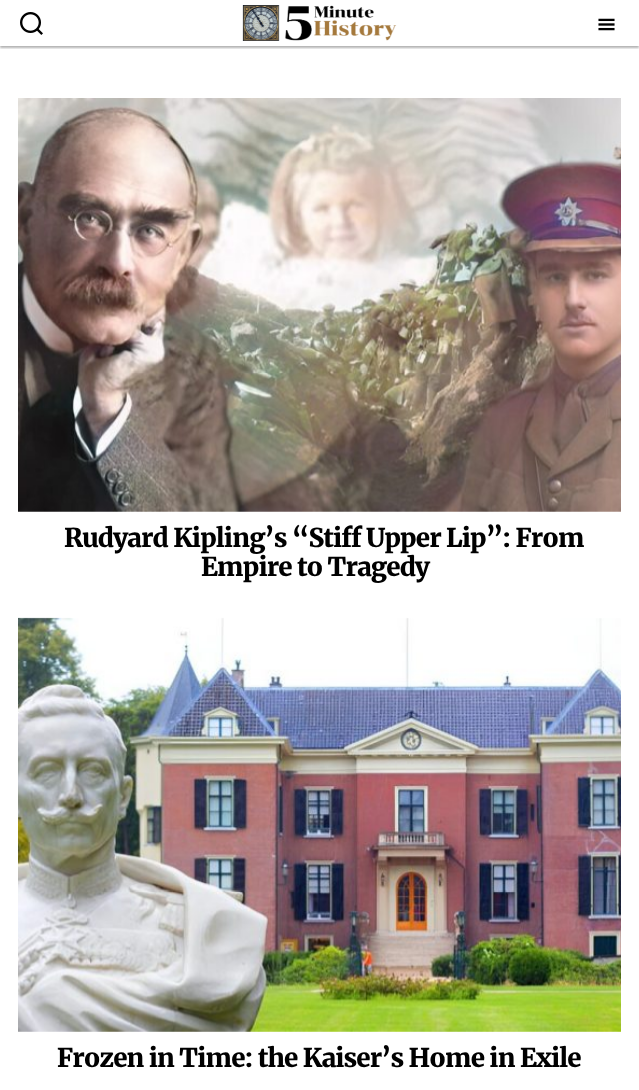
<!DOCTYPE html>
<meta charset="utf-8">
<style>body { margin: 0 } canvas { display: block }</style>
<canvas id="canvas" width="639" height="1090"></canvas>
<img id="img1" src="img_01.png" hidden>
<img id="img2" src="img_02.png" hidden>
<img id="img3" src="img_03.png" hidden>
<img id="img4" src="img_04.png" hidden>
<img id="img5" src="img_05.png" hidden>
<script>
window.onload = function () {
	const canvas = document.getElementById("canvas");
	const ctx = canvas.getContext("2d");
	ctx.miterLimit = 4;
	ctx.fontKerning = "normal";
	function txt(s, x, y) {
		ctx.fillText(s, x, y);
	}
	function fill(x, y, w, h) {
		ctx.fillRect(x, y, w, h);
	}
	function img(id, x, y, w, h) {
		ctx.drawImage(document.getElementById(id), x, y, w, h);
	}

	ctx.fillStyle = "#FFFFFF";
	fill(0, 0, 639, 1090);
	ctx.save();
	ctx.beginPath();
	ctx.rect(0, 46, 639, 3);
	ctx.clip();
	ctx.fillStyle = "rgba(0, 0, 0, 0.3)";
	ctx.filter = "blur(1px)";
	ctx.beginPath();
	ctx.rect(0, 2, 639, 46);
	ctx.fill();
	ctx.filter = "none";
	ctx.restore();
	img("img1", 20, 12, 23, 23);
	img("img2", 242, 5, 155, 36);
	img("img3", 598, 18, 17, 13);
	img("img4", 18, 98, 603, 414);
	img("img5", 18, 617, 603, 415);
	ctx.letterSpacing = "-0.9px";
	ctx.font = "900 25.9px Merriweather";
	ctx.fillStyle = "#000000";
	txt("Rudyard Kipling’s “Stiff Upper Lip”: From", 64, 547);
	txt("Empire to Tragedy", 201, 576);
	txt("Frozen in Time: the Kaiser’s Home in Exile", 57, 1067);
};
</script>
